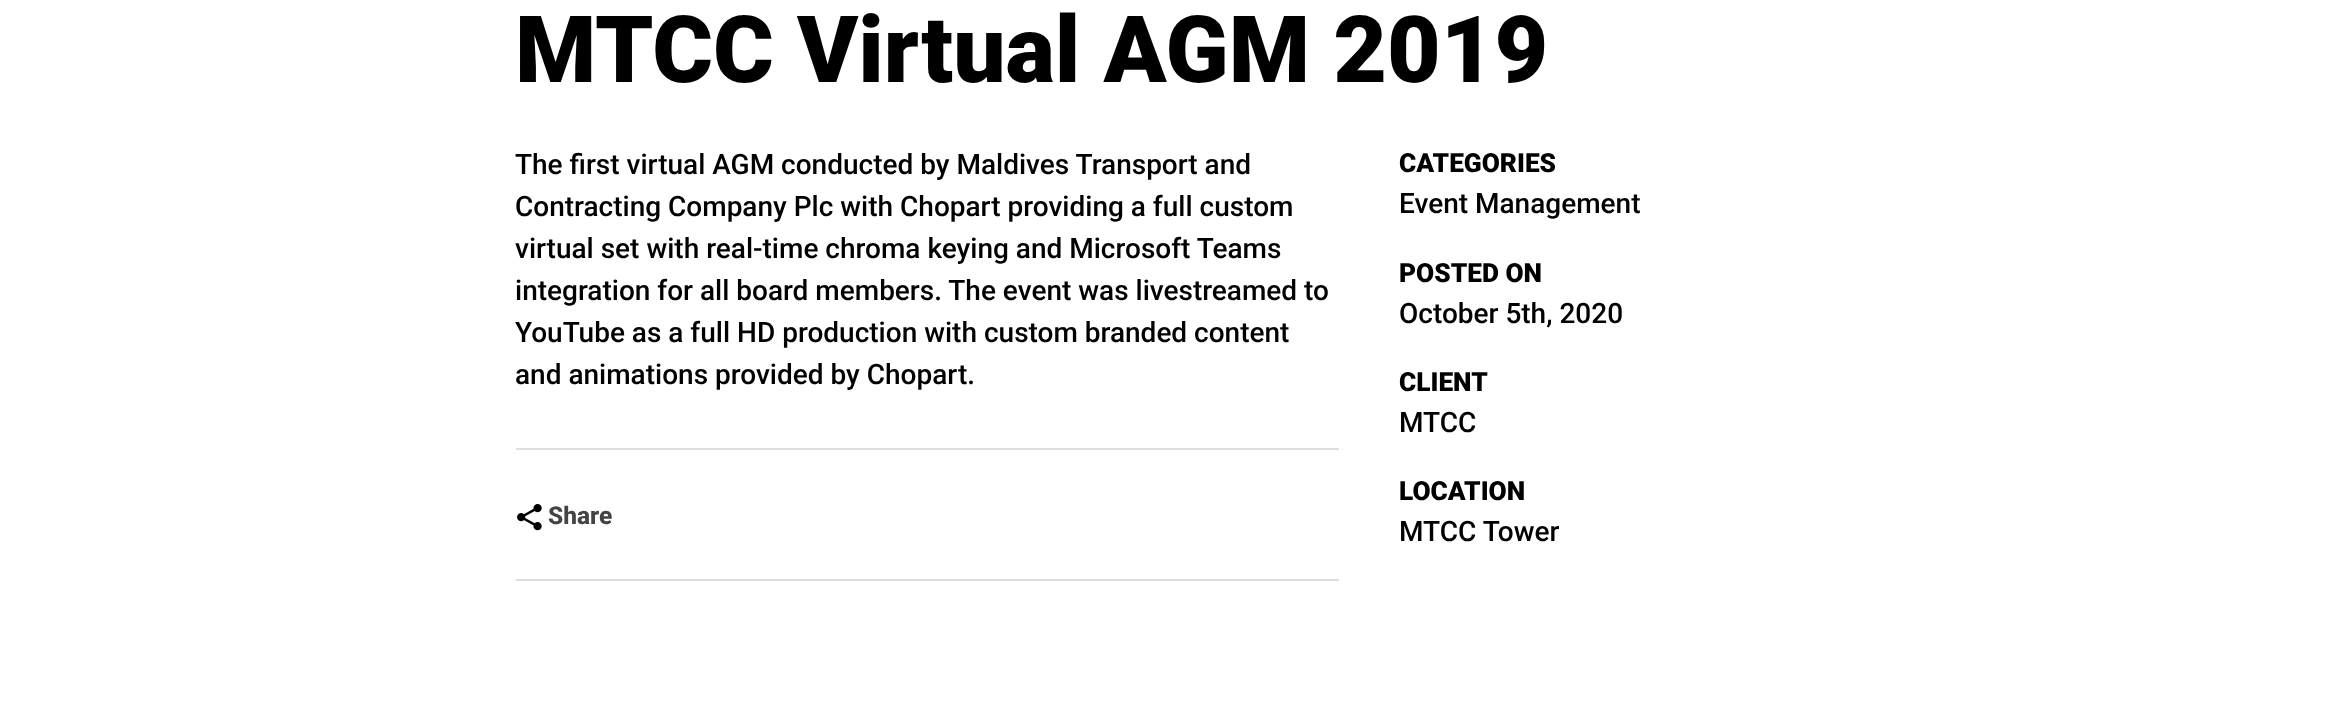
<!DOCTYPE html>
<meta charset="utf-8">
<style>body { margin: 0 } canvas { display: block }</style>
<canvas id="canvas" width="2342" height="704"></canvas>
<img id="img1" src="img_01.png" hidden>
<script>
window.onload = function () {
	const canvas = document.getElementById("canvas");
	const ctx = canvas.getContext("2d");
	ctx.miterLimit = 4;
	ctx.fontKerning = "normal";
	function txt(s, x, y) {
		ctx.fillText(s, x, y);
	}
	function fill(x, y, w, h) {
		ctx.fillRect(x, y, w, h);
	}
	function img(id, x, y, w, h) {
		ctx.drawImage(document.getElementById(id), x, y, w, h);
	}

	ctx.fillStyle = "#FFFFFF";
	fill(0, 0, 2342, 704);
	ctx.fillStyle = "#DEDEDE";
	fill(516, 448, 823, 2);
	fill(516, 579, 823, 2);
	img("img1", 517, 504, 25, 27);
	ctx.font = "900 92.75px Roboto";
	ctx.fillStyle = "#000000";
	txt("MTCC Virtual AGM 2019", 515, 82);
	ctx.font = "500 28px Roboto";
	txt("The first virtual AGM conducted by Maldives Transport and", 515, 174);
	txt("Contracting Company Plc with Chopart providing a full custom", 515, 216);
	txt("virtual set with real-time chroma keying and Microsoft Teams", 515, 258);
	txt("integration for all board members. The event was livestreamed to", 515, 300);
	txt("YouTube as a full HD production with custom branded content", 515, 342);
	txt("and animations provided by Chopart.", 515, 384);
	ctx.font = "800 24.5px Roboto";
	ctx.fillStyle = "#444444";
	txt("Share", 548, 524);
	ctx.font = "900 26.25px Roboto";
	ctx.fillStyle = "#000000";
	txt("CATEGORIES", 1399, 172);
	ctx.font = "500 28px Roboto";
	txt("Event Management", 1399, 213);
	ctx.font = "900 26.25px Roboto";
	txt("POSTED ON", 1399, 282);
	ctx.font = "500 28px Roboto";
	txt("October 5th, 2020", 1399, 323);
	ctx.font = "900 26.25px Roboto";
	txt("CLIENT", 1399, 391);
	ctx.font = "500 28px Roboto";
	txt("MTCC", 1399, 432);
	ctx.font = "900 26.25px Roboto";
	txt("LOCATION", 1399, 500);
	ctx.font = "500 28px Roboto";
	txt("MTCC Tower", 1399, 541);
};
</script>
